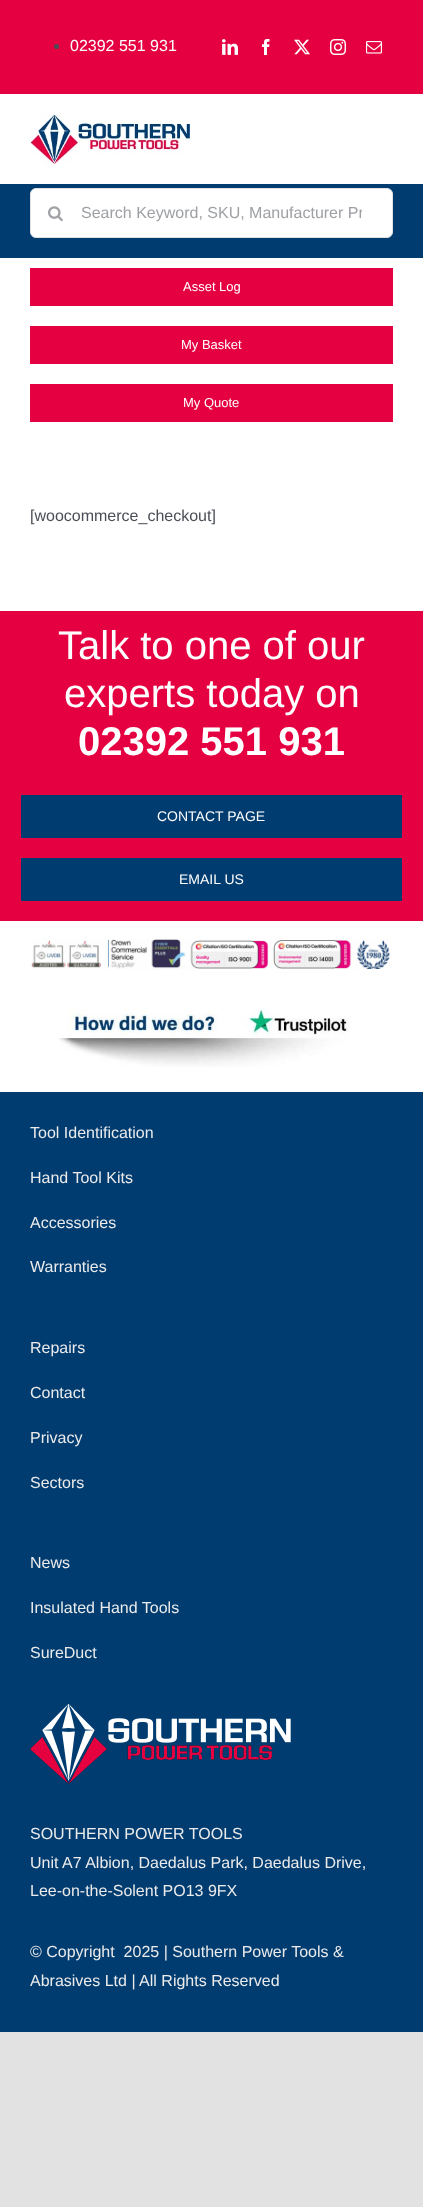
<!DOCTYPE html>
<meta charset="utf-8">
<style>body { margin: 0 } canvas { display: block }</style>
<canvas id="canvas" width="423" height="2207"></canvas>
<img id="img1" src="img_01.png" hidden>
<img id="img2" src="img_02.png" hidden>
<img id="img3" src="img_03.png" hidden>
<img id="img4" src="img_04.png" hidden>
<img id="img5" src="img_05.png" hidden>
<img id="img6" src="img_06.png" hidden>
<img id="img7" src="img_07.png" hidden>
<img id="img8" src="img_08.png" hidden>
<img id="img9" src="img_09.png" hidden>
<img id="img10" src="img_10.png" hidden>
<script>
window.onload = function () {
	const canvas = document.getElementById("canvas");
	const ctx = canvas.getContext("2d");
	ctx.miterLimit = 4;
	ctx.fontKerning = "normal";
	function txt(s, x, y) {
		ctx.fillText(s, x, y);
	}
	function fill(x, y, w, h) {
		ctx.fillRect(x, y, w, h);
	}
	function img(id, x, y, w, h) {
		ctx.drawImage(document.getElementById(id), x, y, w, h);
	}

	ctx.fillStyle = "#E2E2E2";
	fill(0, 0, 423, 2207);
	ctx.fillStyle = "#FFFFFF";
	fill(0, 94, 423, 998);
	ctx.fillStyle = "#E50141";
	fill(0, 0, 423, 94);
	ctx.fillStyle = "#4A4E57";
	ctx.beginPath();
	ctx.arc(56.5, 46.5, 2.5, 0, Math.PI * 2);
	ctx.fill();
	img("img1", 222, 39, 16, 16);
	img("img2", 262, 39, 8, 16);
	img("img3", 294, 39, 16, 16);
	img("img4", 330, 39, 16, 16);
	img("img5", 366, 41, 16, 13);
	img("img6", 30, 114, 160, 50);
	ctx.fillStyle = "#003C70";
	fill(0, 184, 423, 74);
	ctx.fillStyle = "#FFFFFF";
	ctx.beginPath();
	ctx.roundRect(30.5, 188.5, 362, 49, 5.5);
	ctx.fill();
	ctx.strokeStyle = "#E2E2E2";
	ctx.stroke();
	img("img7", 48, 206, 15, 16);
	ctx.fillStyle = "#E50141";
	fill(30, 268, 363, 38);
	fill(30, 326, 363, 38);
	fill(30, 384, 363, 38);
	fill(0, 611, 423, 310);
	ctx.fillStyle = "#003C70";
	fill(21, 795, 381, 43);
	fill(21, 858, 381, 43);
	img("img8", 31, 938, 359, 32);
	img("img9", 58, 1008, 291, 59);
	fill(0, 1092, 423, 940);
	img("img10", 30, 1704, 261, 80);
	ctx.font = "16px Liberation Sans";
	ctx.fillStyle = "#FFFFFF";
	txt("02392 551 931", 70, 51);
	ctx.save();
	ctx.beginPath();
	ctx.rect(81, 204, 281, 18);
	ctx.clip();
	ctx.fillStyle = "#9EA0A4";
	txt("Search Keyword, SKU, Manufacturer Pr", 81, 218);
	ctx.restore();
	ctx.font = "13px Liberation Sans";
	txt("Asset Log", 183, 291);
	txt("My Basket", 181, 349);
	txt("My Quote", 183, 407);
	ctx.font = "16px Liberation Sans";
	ctx.fillStyle = "#4A4E57";
	txt("[woocommerce_checkout]", 30, 521);
	ctx.font = "40px Liberation Sans";
	ctx.fillStyle = "#FFFFFF";
	txt("Talk to one of our", 58, 659);
	txt("experts today on", 64, 707);
	ctx.font = "bold 40px Liberation Sans";
	txt("02392 551 931", 78, 755);
	ctx.font = "14px Liberation Sans";
	txt("CONTACT PAGE", 157, 821);
	txt("EMAIL US", 179, 884);
	ctx.font = "16px Liberation Sans";
	ctx.fillStyle = "#EBEBEB";
	txt("Tool Identification", 30, 1138);
	txt("Hand Tool Kits", 30, 1183);
	txt("Accessories", 30, 1228);
	txt("Warranties", 30, 1272);
	txt("Repairs", 30, 1353);
	txt("Contact", 30, 1398);
	txt("Privacy", 30, 1443);
	txt("Sectors", 30, 1488);
	txt("News", 30, 1568);
	txt("Insulated Hand Tools", 30, 1613);
	txt("SureDuct", 30, 1658);
	txt("SOUTHERN POWER TOOLS", 30, 1839);
	txt("Unit A7 Albion, Daedalus Park, Daedalus Drive,", 30, 1868);
	txt("Lee-on-the-Solent PO13 9FX", 30, 1896);
	txt("© Copyright  2025 | Southern Power Tools &", 30, 1957);
	txt("Abrasives Ltd | All Rights Reserved", 30, 1986);
};
</script>
